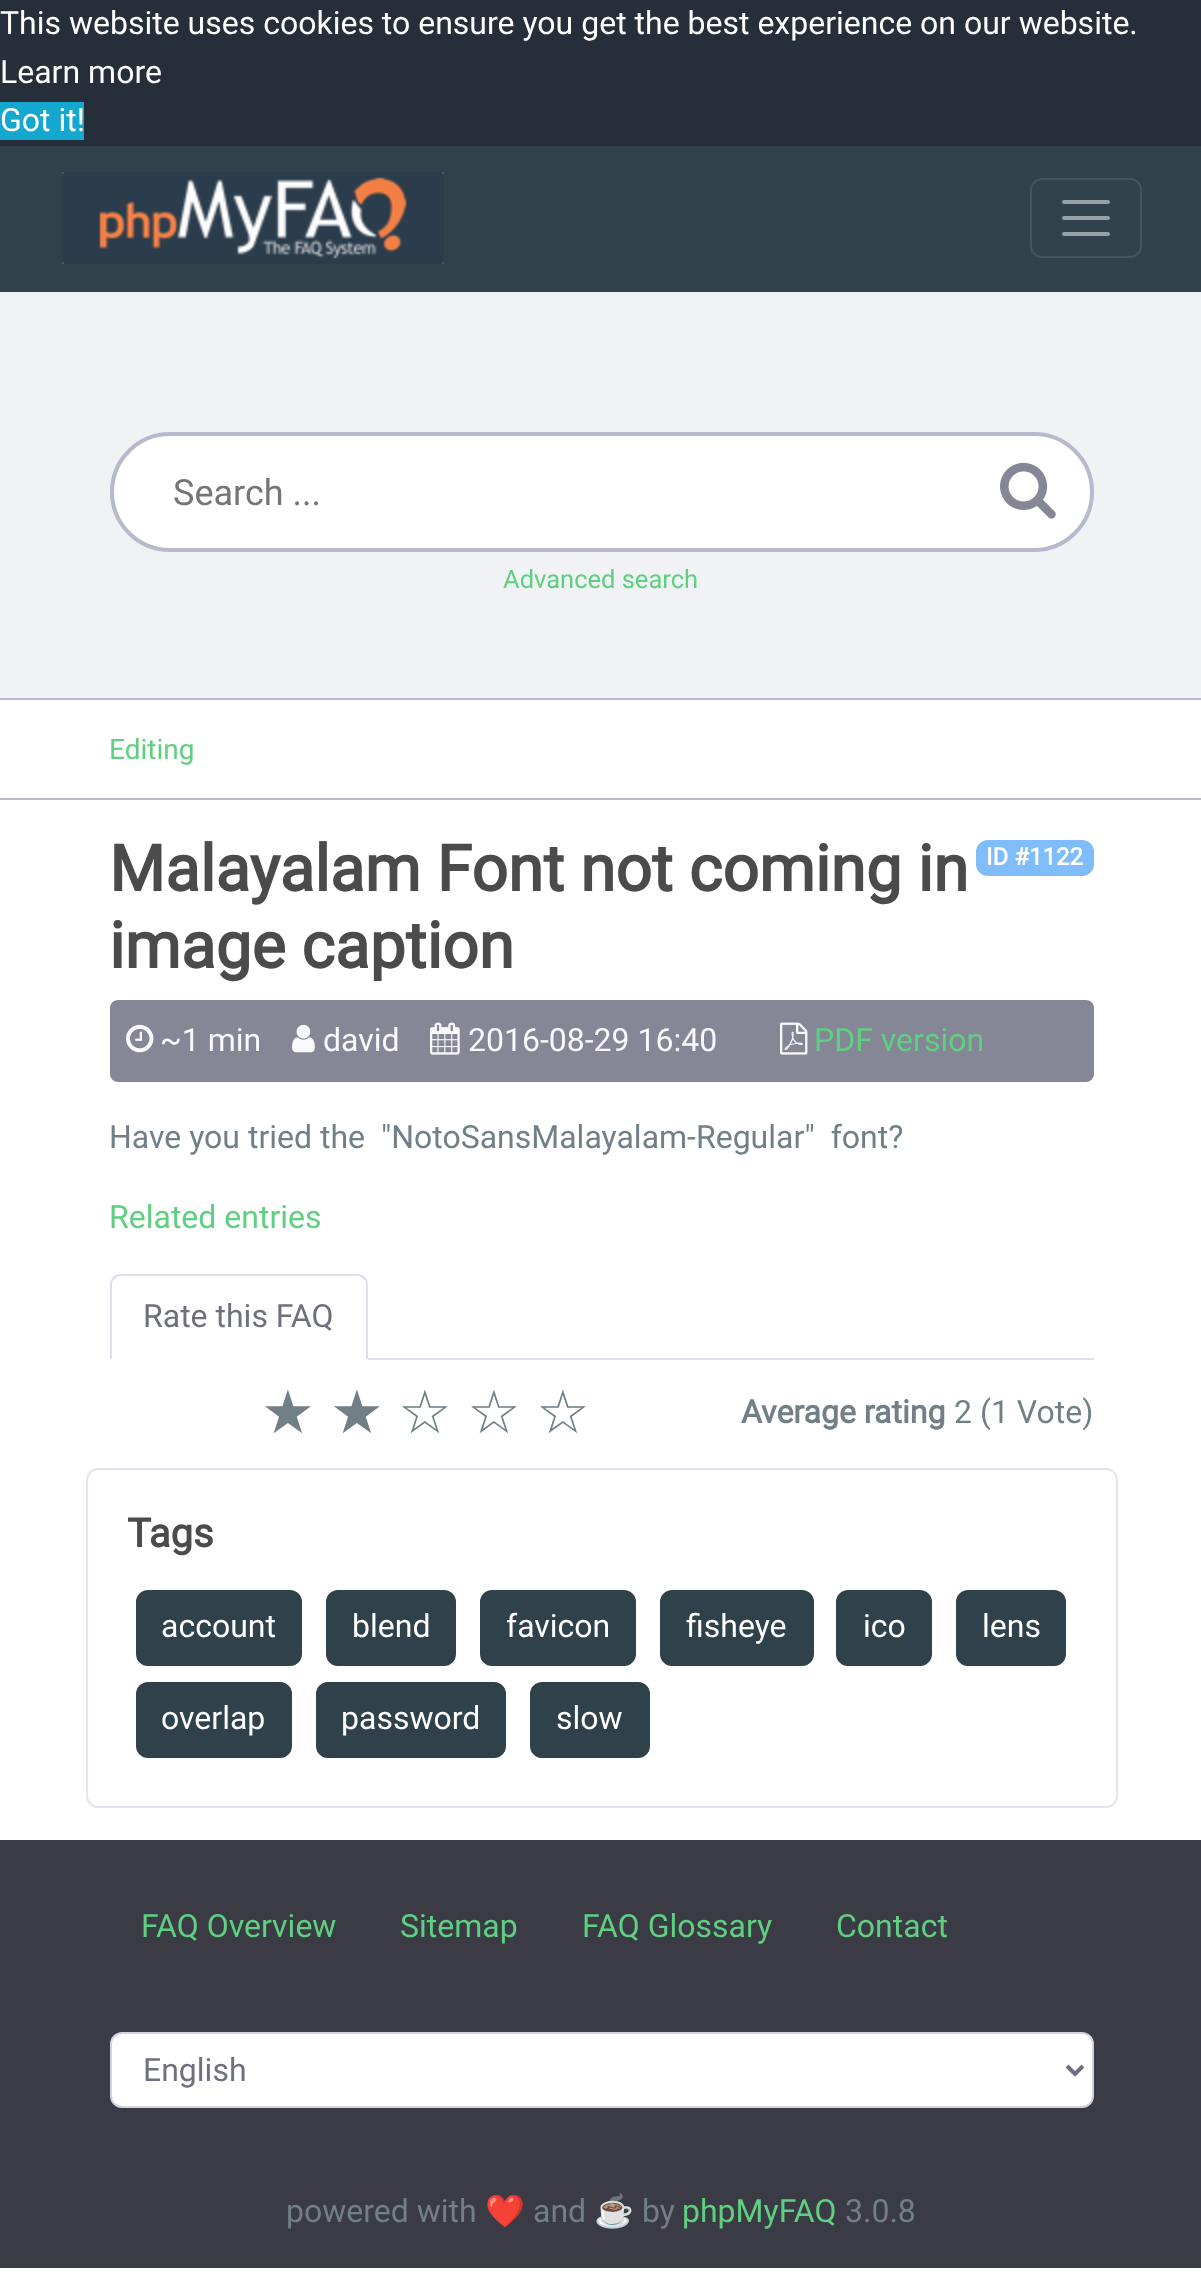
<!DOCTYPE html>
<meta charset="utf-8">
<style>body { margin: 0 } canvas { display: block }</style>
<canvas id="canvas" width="1201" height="2285"></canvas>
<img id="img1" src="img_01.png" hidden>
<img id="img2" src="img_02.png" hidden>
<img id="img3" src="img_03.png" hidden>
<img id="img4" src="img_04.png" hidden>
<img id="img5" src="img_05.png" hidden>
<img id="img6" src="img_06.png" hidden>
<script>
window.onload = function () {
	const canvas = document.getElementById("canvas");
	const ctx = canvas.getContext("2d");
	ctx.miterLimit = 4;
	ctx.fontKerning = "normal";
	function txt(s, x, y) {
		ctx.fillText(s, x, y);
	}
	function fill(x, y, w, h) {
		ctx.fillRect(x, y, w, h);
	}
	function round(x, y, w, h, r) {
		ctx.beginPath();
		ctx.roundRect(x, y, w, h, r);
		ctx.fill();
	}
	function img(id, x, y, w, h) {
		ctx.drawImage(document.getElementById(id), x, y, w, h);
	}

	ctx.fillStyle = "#FFFFFF";
	fill(0, 0, 1201, 2285);
	ctx.fillStyle = "#252E39";
	fill(0, 0, 1201, 146);
	ctx.fillStyle = "#14A7D0";
	fill(0, 102, 84, 38);
	ctx.fillStyle = "#2F414A";
	fill(0, 146, 1201, 146);
	img("img1", 62, 172, 382, 92);
	ctx.beginPath();
	ctx.roundRect(1031, 179, 110, 78, 11);
	ctx.strokeStyle = "#44545C";
	ctx.lineWidth = 2;
	ctx.stroke();
	ctx.beginPath();
	ctx.moveTo(1064, 202);
	ctx.lineTo(1108, 202);
	ctx.moveTo(1064, 218);
	ctx.lineTo(1108, 218);
	ctx.moveTo(1064, 234);
	ctx.lineTo(1108, 234);
	ctx.strokeStyle = "#97A0A5";
	ctx.lineWidth = 4;
	ctx.lineCap = "round";
	ctx.stroke();
	ctx.fillStyle = "#F1F2F5";
	fill(0, 292, 1201, 406);
	ctx.fillStyle = "#B7B9CC";
	fill(0, 698, 1201, 2);
	ctx.fillStyle = "#FFFFFF";
	ctx.beginPath();
	ctx.roundRect(112, 434, 980, 116, 58);
	ctx.fill();
	ctx.strokeStyle = "#B7B9CC";
	ctx.stroke();
	img("img2", 1000, 462, 56, 57);
	ctx.fillStyle = "#B7B9CC";
	fill(0, 798, 1201, 2);
	ctx.fillStyle = "#7EBCFA";
	round(976, 840, 118, 36, 12);
	ctx.fillStyle = "#858796";
	round(110, 1000, 984, 82, 8);
	img("img3", 126, 1024, 28, 29);
	img("img4", 292, 1024, 23, 29);
	img("img5", 430, 1022, 30, 33);
	img("img6", 780, 1022, 28, 33);
	ctx.fillStyle = "#DDDFEB";
	fill(368, 1358, 726, 2);
	ctx.beginPath();
	ctx.moveTo(121, 1274);
	ctx.bezierCurveTo(118, 1274, 115, 1275, 113, 1277);
	ctx.lineTo(115, 1279);
	ctx.bezierCurveTo(116, 1277, 118, 1276, 121, 1276);
	ctx.lineTo(357, 1276);
	ctx.bezierCurveTo(360, 1276, 362, 1277, 363, 1279);
	ctx.lineTo(365, 1277);
	ctx.bezierCurveTo(363, 1275, 360, 1274, 357, 1274);
	ctx.closePath();
	ctx.fill();
	ctx.beginPath();
	ctx.moveTo(368, 1360);
	ctx.lineTo(368, 1285);
	ctx.bezierCurveTo(368, 1282, 367, 1279, 365, 1277);
	ctx.lineTo(363, 1279);
	ctx.bezierCurveTo(365, 1280, 366, 1282, 366, 1285);
	ctx.lineTo(366, 1358);
	ctx.closePath();
	ctx.fill();
	ctx.fillStyle = "#FFFFFF";
	ctx.beginPath();
	ctx.moveTo(368, 1360);
	ctx.lineTo(366, 1358);
	ctx.lineTo(112, 1358);
	ctx.lineTo(110, 1360);
	ctx.closePath();
	ctx.fill();
	ctx.fillStyle = "#DDDFEB";
	ctx.beginPath();
	ctx.moveTo(110, 1360);
	ctx.lineTo(112, 1358);
	ctx.lineTo(112, 1285);
	ctx.bezierCurveTo(112, 1282, 113, 1280, 115, 1279);
	ctx.lineTo(113, 1277);
	ctx.bezierCurveTo(111, 1279, 110, 1282, 110, 1285);
	ctx.closePath();
	ctx.fill();
	ctx.beginPath();
	ctx.roundRect(87, 1469, 1030, 338, 11);
	ctx.strokeStyle = "#E3E6F0";
	ctx.lineWidth = 2;
	ctx.stroke();
	ctx.fillStyle = "#2F414A";
	ctx.beginPath();
	ctx.roundRect(137, 1591, 164, 74, 11);
	ctx.fill();
	ctx.strokeStyle = "#2F414A";
	ctx.stroke();
	ctx.beginPath();
	ctx.roundRect(327, 1591, 128, 74, 11);
	ctx.fill();
	ctx.stroke();
	ctx.beginPath();
	ctx.roundRect(481, 1591, 154, 74, 11);
	ctx.fill();
	ctx.stroke();
	ctx.beginPath();
	ctx.roundRect(661, 1591, 152, 74, 11);
	ctx.fill();
	ctx.stroke();
	ctx.beginPath();
	ctx.roundRect(837, 1591, 94, 74, 11);
	ctx.fill();
	ctx.stroke();
	ctx.beginPath();
	ctx.roundRect(957, 1591, 108, 74, 11);
	ctx.fill();
	ctx.stroke();
	ctx.beginPath();
	ctx.roundRect(137, 1683, 154, 74, 11);
	ctx.fill();
	ctx.stroke();
	ctx.beginPath();
	ctx.roundRect(317, 1683, 188, 74, 11);
	ctx.fill();
	ctx.stroke();
	ctx.beginPath();
	ctx.roundRect(531, 1683, 118, 74, 11);
	ctx.fill();
	ctx.stroke();
	ctx.fillStyle = "#3A3B45";
	fill(0, 1840, 1201, 428);
	ctx.fillStyle = "#FFFFFF";
	ctx.beginPath();
	ctx.roundRect(111, 2033, 982, 74, 11);
	ctx.fill();
	ctx.strokeStyle = "#D1D3E2";
	ctx.stroke();
	ctx.beginPath();
	ctx.moveTo(1067, 2066);
	ctx.lineTo(1075, 2074);
	ctx.lineTo(1083, 2066);
	ctx.strokeStyle = "#6E707E";
	ctx.lineWidth = 4;
	ctx.lineCap = "butt";
	ctx.stroke();
	ctx.font = "32px Roboto";
	txt("This website uses cookies to ensure you get the best experience on our website.", 0, 34);
	txt("Learn more", 0, 83);
	txt("Got it!", 0, 131);
	ctx.font = "36px Roboto";
	ctx.fillStyle = "#757575";
	txt("Search ...", 173, 505);
	ctx.font = "25.5px Roboto";
	ctx.fillStyle = "#5FCF80";
	txt("Advanced search", 503, 588);
	ctx.font = "28px Roboto";
	txt("Editing", 109, 759);
	ctx.font = "bold 64px Roboto";
	ctx.fillStyle = "#4B4B4C";
	txt("Malayalam Font not coming in", 109, 891);
	txt("image caption", 109, 968);
	ctx.font = "bold 24px Roboto";
	ctx.fillStyle = "#FFFFFF";
	txt("ID #1122", 986, 865);
	ctx.font = "32px Roboto";
	ctx.fillStyle = "#F8F9FC";
	txt("~1 min", 160, 1051);
	txt("david", 323, 1051);
	txt("2016-08-29 16:40", 468, 1051);
	ctx.fillStyle = "#5FCF80";
	txt("PDF version", 814, 1051);
	ctx.fillStyle = "#717F86";
	txt("Have you tried the  \"NotoSansMalayalam-Regular\"  font?", 109, 1148);
	ctx.fillStyle = "#5FCF80";
	txt("Related entries", 109, 1228);
	ctx.fillStyle = "#6E707E";
	txt("Rate this FAQ", 143, 1327);
	ctx.font = "60px DejaVu Sans";
	ctx.fillStyle = "#717F86";
	txt("★", 261, 1433);
	txt("★", 330, 1433);
	txt("☆", 398, 1433);
	txt("☆", 467, 1433);
	txt("☆", 536, 1433);
	ctx.font = "bold 32px Roboto";
	txt("Average rating", 741, 1423);
	ctx.font = "32px Roboto";
	txt("2 (1 Vote)", 954, 1423);
	ctx.font = "bold 40px Roboto";
	ctx.fillStyle = "#4B4B4C";
	txt("Tags", 127, 1547);
	ctx.font = "32px Roboto";
	ctx.fillStyle = "#FFFFFF";
	txt("account", 161, 1637);
	txt("blend", 352, 1637);
	txt("favicon", 506, 1637);
	txt("fisheye", 686, 1637);
	txt("ico", 863, 1637);
	txt("lens", 982, 1637);
	txt("overlap", 161, 1729);
	txt("password", 341, 1729);
	txt("slow", 556, 1729);
	ctx.fillStyle = "#5FCF80";
	txt("FAQ Overview", 141, 1937);
	txt("Sitemap", 400, 1937);
	txt("FAQ Glossary", 582, 1937);
	txt("Contact", 836, 1937);
	ctx.fillStyle = "#6E707E";
	txt("English", 143, 2081);
	ctx.fillStyle = "#717F86";
	txt("powered with", 286, 2222);
	ctx.font = "32px Noto Color Emoji";
	txt("❤️", 485, 2222);
	ctx.font = "32px Roboto";
	txt("and", 533, 2222);
	ctx.font = "32px Noto Color Emoji";
	txt("☕️", 594, 2222);
	ctx.font = "32px Roboto";
	txt("by", 642, 2222);
	ctx.fillStyle = "#5FCF80";
	txt("phpMyFAQ", 682, 2222);
	ctx.fillStyle = "#717F86";
	txt("3.0.8", 845, 2222);
};
</script>
